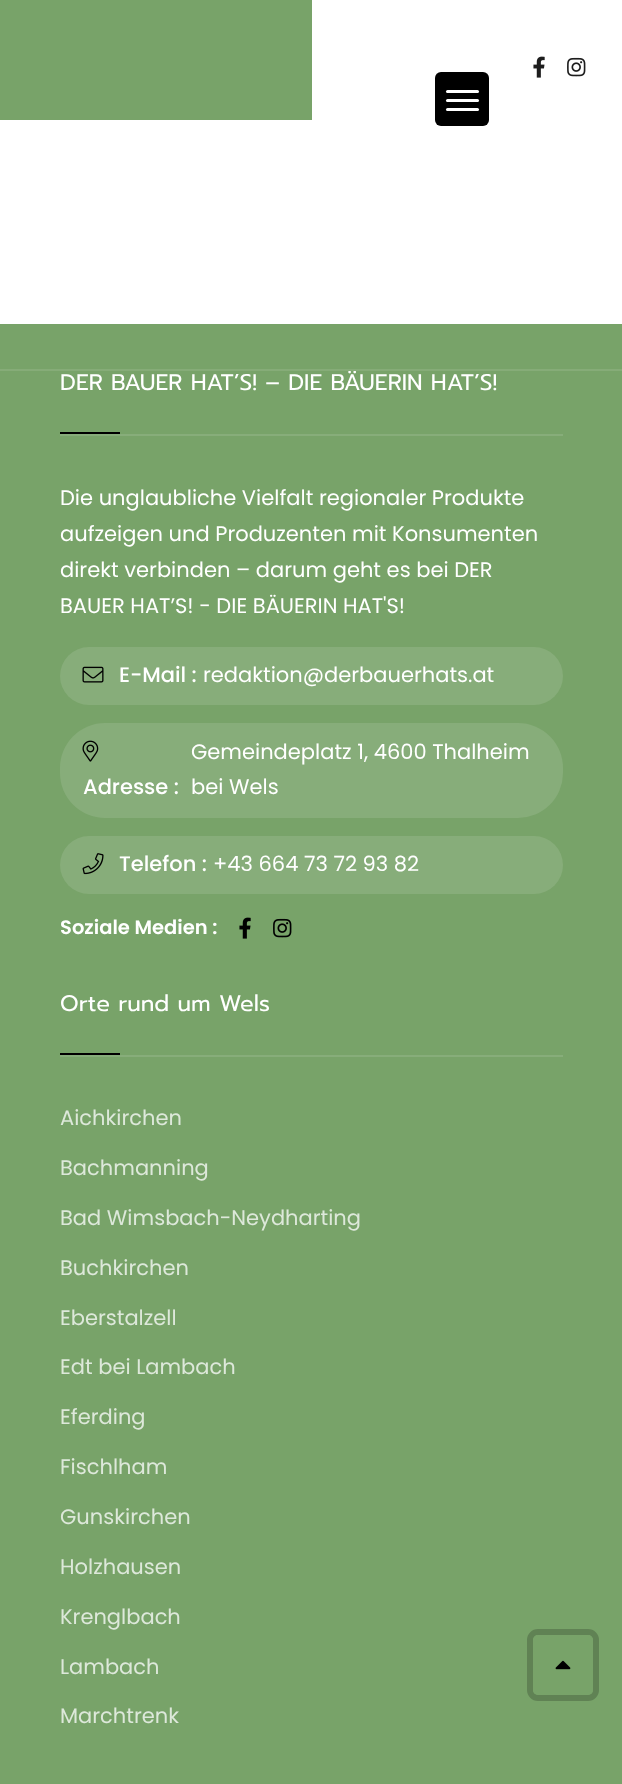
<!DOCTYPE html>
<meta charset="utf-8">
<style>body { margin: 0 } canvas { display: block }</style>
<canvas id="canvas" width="622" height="1784"></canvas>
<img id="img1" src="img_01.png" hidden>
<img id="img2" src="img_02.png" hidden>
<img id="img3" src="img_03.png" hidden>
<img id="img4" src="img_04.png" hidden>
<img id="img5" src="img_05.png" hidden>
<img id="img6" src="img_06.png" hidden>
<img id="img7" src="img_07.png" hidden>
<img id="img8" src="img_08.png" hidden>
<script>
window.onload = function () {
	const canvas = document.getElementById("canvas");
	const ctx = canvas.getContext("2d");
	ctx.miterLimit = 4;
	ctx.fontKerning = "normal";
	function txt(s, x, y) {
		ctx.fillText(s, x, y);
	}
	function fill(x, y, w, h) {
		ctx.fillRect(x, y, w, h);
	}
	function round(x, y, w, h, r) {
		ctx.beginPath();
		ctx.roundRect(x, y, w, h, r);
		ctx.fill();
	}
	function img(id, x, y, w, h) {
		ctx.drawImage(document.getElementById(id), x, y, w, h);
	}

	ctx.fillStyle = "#78A369";
	fill(0, 0, 622, 1784);
	ctx.fillStyle = "#FFFFFF";
	fill(312, 0, 310, 120);
	img("img1", 533, 56, 12, 22);
	img("img2", 567, 57, 19, 20);
	fill(0, 120, 622, 204);
	ctx.fillStyle = "#000000";
	round(435, 72, 54, 54, 6);
	ctx.fillStyle = "#FFFFFF";
	round(446, 90, 33, 3, 1.5);
	round(446, 99, 33, 3, 1.5);
	round(446, 108, 33, 3, 1.5);
	ctx.fillStyle = "#86AC78";
	fill(0, 369, 622, 2);
	ctx.fillStyle = "#87AD7A";
	fill(60, 434, 503, 2);
	ctx.fillStyle = "#000000";
	fill(60, 432, 60, 2);
	ctx.fillStyle = "#87AD7A";
	round(60, 647, 503, 58, 29);
	img("img3", 82, 666, 22, 17);
	round(60, 723, 503, 95, 45);
	img("img4", 82, 740, 17, 22);
	round(60, 836, 503, 58, 29);
	img("img5", 82, 853, 22, 22);
	img("img6", 239, 917, 12, 22);
	img("img7", 273, 918, 19, 20);
	fill(60, 1055, 503, 2);
	ctx.fillStyle = "#000000";
	fill(60, 1053, 60, 2);
	ctx.beginPath();
	ctx.roundRect(530, 1632, 66, 66, 8);
	ctx.strokeStyle = "#608254";
	ctx.lineWidth = 6;
	ctx.stroke();
	ctx.fillStyle = "#78A369";
	round(533, 1635, 60, 60, 5);
	img("img8", 555, 1660, 16, 10);
	ctx.save();
	ctx.beginPath();
	ctx.rect(0, 371, 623, 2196);
	ctx.clip();
	ctx.font = "22.6px Prompt";
	ctx.fillStyle = "#FFFFFF";
	txt("DER BAUER HAT’S! – DIE BÄUERIN HAT’S!", 60, 390);
	ctx.restore();
	ctx.font = "21px Poppins";
	ctx.fillStyle = "#FFFFFF";
	txt("Die unglaubliche Vielfalt regionaler Produkte", 60, 505);
	txt("aufzeigen und Produzenten mit Konsumenten", 60, 541);
	txt("direkt verbinden – darum geht es bei DER", 60, 577);
	txt("BAUER HAT’S! - DIE BÄUERIN HAT'S!", 60, 613);
	ctx.font = "500 21px Poppins";
	txt("E-Mail :", 119, 682);
	ctx.font = "21px Poppins";
	txt("redaktion@derbauerhats.at", 203, 682);
	ctx.font = "500 21px Poppins";
	txt("Adresse :", 83, 794);
	ctx.font = "21px Poppins";
	txt("Gemeindeplatz 1, 4600 Thalheim", 191, 759);
	txt("bei Wels", 191, 794);
	ctx.font = "500 21px Poppins";
	txt("Telefon :", 119, 871);
	ctx.font = "21px Poppins";
	txt("+43 664 73 72 93 82", 213, 871);
	ctx.font = "600 19.5px Poppins";
	txt("Soziale Medien :", 60, 934);
	ctx.font = "22.6px Prompt";
	txt("Orte rund um Wels", 60, 1011);
	ctx.font = "21px Poppins";
	ctx.fillStyle = "#DDE8DA";
	txt("Aichkirchen", 60, 1125);
	txt("Bachmanning", 60, 1175);
	txt("Bad Wimsbach-Neydharting", 60, 1225);
	txt("Buchkirchen", 60, 1275);
	txt("Eberstalzell", 60, 1325);
	txt("Edt bei Lambach", 60, 1374);
	txt("Eferding", 60, 1424);
	txt("Fischlham", 60, 1474);
	txt("Gunskirchen", 60, 1524);
	txt("Holzhausen", 60, 1574);
	txt("Krenglbach", 60, 1624);
	txt("Lambach", 60, 1674);
	txt("Marchtrenk", 60, 1723);
};
</script>
